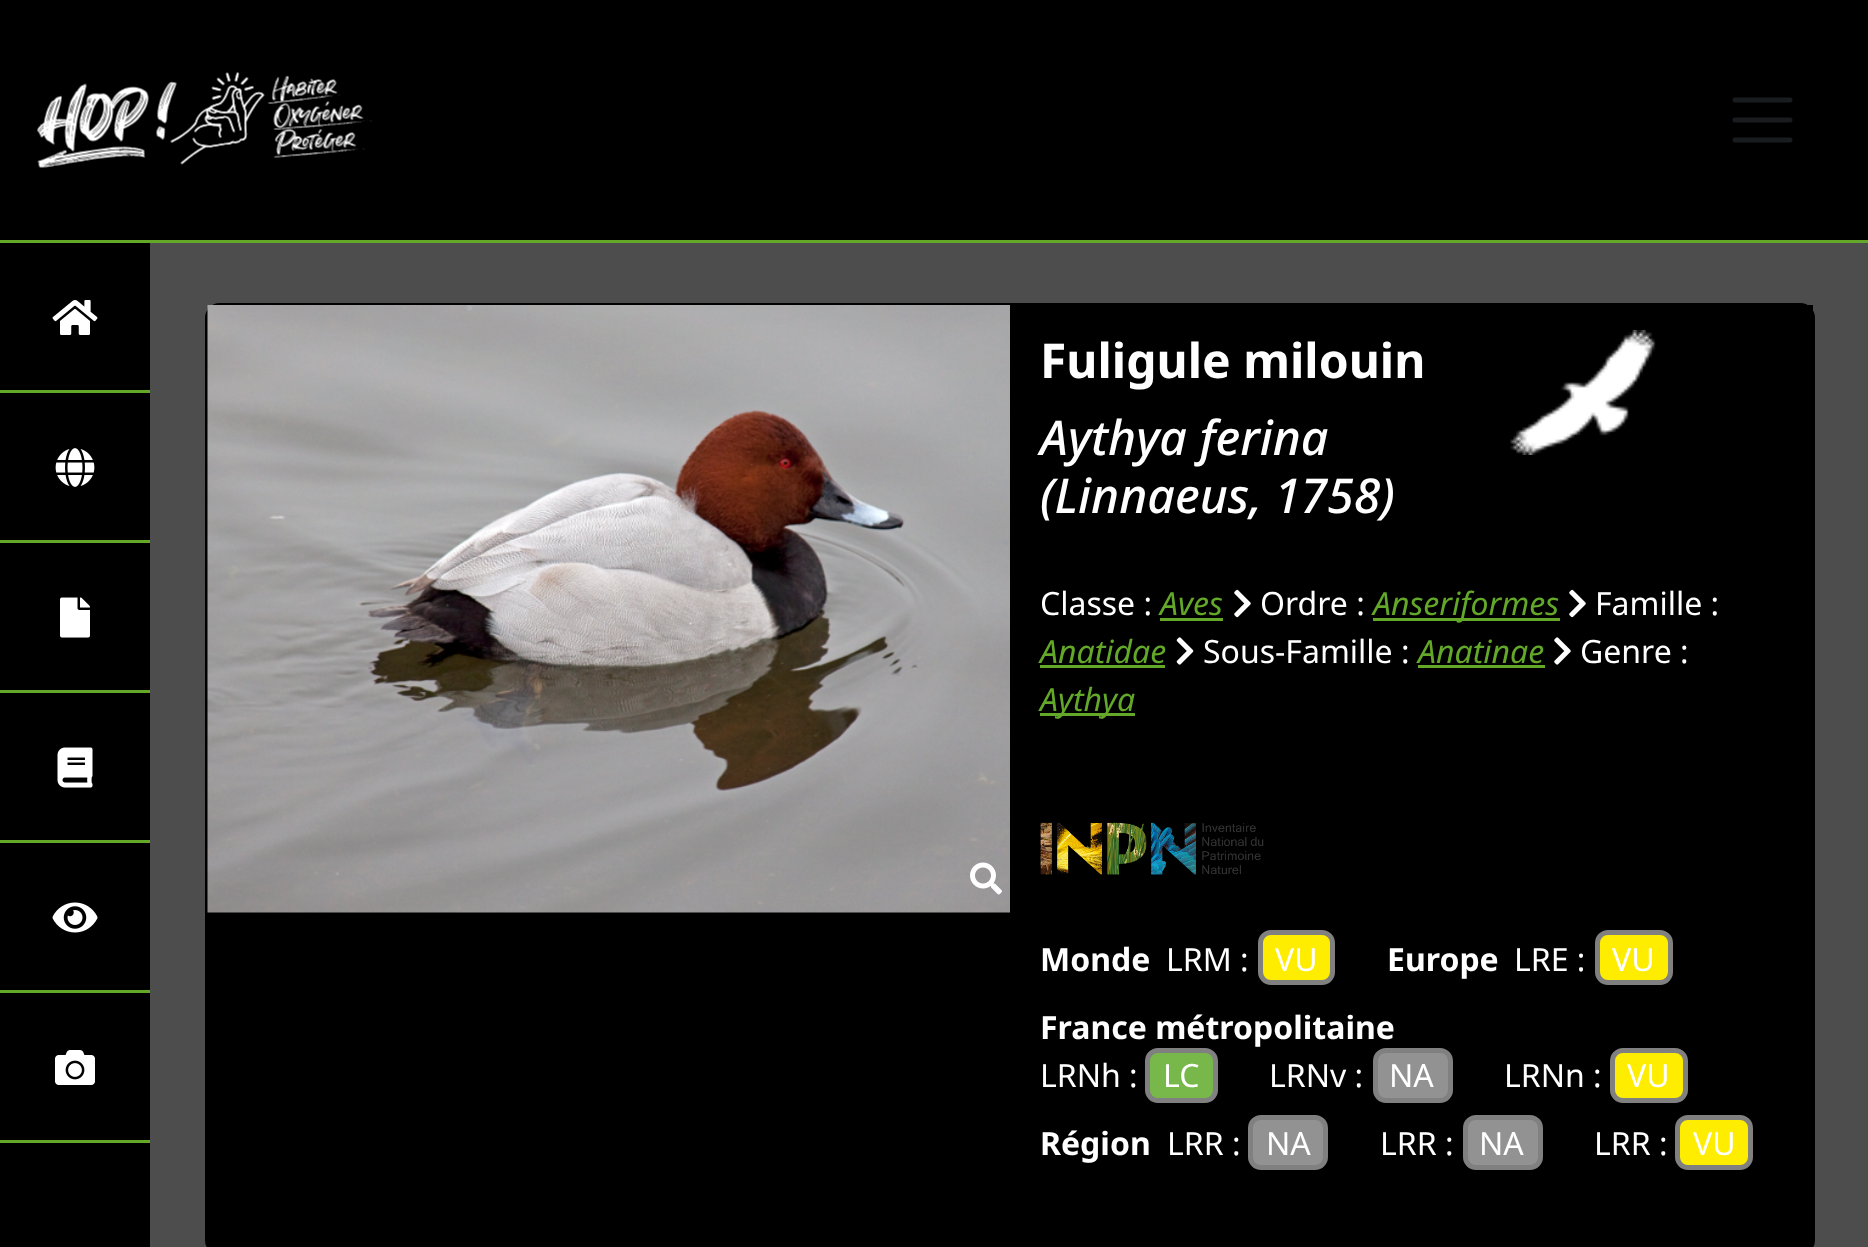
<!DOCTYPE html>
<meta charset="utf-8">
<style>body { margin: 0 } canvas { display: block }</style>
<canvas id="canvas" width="1868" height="1247"></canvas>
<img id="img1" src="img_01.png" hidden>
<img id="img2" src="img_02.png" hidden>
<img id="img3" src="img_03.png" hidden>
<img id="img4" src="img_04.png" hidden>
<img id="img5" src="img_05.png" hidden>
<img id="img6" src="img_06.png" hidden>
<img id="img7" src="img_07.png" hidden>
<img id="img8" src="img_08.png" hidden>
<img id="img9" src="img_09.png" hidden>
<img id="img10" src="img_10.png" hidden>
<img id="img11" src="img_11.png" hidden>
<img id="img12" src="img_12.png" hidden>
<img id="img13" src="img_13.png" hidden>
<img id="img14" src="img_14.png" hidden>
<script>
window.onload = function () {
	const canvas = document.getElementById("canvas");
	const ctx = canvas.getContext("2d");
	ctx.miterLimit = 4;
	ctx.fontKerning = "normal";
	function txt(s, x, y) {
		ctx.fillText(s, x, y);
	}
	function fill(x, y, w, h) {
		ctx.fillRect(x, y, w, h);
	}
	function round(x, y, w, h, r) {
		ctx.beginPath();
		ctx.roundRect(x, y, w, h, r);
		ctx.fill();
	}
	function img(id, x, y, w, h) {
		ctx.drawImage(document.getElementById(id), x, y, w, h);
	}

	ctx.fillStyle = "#4D4D4D";
	fill(0, 0, 1868, 1247);
	ctx.fillStyle = "#000000";
	fill(0, 0, 1868, 240);
	ctx.fillStyle = "#63A829";
	fill(0, 240, 1868, 3);
	img("img1", 37, 72, 335, 96);
	ctx.beginPath();
	ctx.moveTo(1735, 100);
	ctx.lineTo(1790, 100);
	ctx.moveTo(1735, 120);
	ctx.lineTo(1790, 120);
	ctx.moveTo(1735, 140);
	ctx.lineTo(1790, 140);
	ctx.strokeStyle = "#191C1F";
	ctx.lineWidth = 5;
	ctx.lineCap = "round";
	ctx.stroke();
	ctx.fillStyle = "#000000";
	fill(0, 243, 150, 1004);
	ctx.fillStyle = "#63A829";
	fill(0, 390, 150, 3);
	img("img2", 52, 300, 46, 35);
	fill(0, 540, 150, 3);
	img("img3", 55, 448, 40, 39);
	fill(0, 690, 150, 3);
	img("img4", 60, 597, 30, 41);
	fill(0, 840, 150, 3);
	img("img5", 57, 747, 36, 41);
	fill(0, 990, 150, 3);
	img("img6", 52, 902, 46, 31);
	fill(0, 1140, 150, 3);
	img("img7", 55, 1050, 40, 35);
	ctx.fillStyle = "#000000";
	round(205, 303, 1610, 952, 15);
	ctx.beginPath();
	ctx.roundRect(206.5, 304.5, 1607, 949, 13.5);
	ctx.strokeStyle = "rgba(0, 0, 0, 0.18)";
	ctx.lineWidth = 3;
	ctx.stroke();
	img("img8", 207, 305, 803, 608);
	img("img9", 970, 862, 32, 33);
	fill(1807, 305, 6, 6);
	img("img10", 1510, 330, 146, 125);
	ctx.fillStyle = "#63A829";
	fill(1160, 618, 63, 3);
	img("img11", 1234, 589, 17, 29);
	fill(1373, 618, 187, 3);
	img("img11", 1569, 589, 17, 29);
	fill(1040, 665, 125, 3);
	img("img12", 1176, 637, 18, 28);
	fill(1418, 665, 127, 3);
	img("img13", 1554, 637, 17, 28);
	fill(1040, 713, 95, 3);
	img("img14", 1040, 822, 224, 53);
	ctx.fillStyle = "#FFED00";
	ctx.beginPath();
	ctx.roundRect(1260.5, 932.5, 72, 50, 10.5);
	ctx.fill();
	ctx.strokeStyle = "#808080";
	ctx.lineWidth = 5;
	ctx.stroke();
	ctx.beginPath();
	ctx.roundRect(1597.5, 932.5, 73, 50, 10.5);
	ctx.fill();
	ctx.stroke();
	ctx.fillStyle = "#78B74A";
	ctx.beginPath();
	ctx.roundRect(1147.5, 1050.5, 68, 50, 10.5);
	ctx.fill();
	ctx.stroke();
	ctx.fillStyle = "#919291";
	ctx.beginPath();
	ctx.roundRect(1375.5, 1050.5, 75, 50, 10.5);
	ctx.fill();
	ctx.stroke();
	ctx.fillStyle = "#FFED00";
	ctx.beginPath();
	ctx.roundRect(1612.5, 1050.5, 73, 50, 10.5);
	ctx.fill();
	ctx.stroke();
	ctx.fillStyle = "#919291";
	ctx.beginPath();
	ctx.roundRect(1250.5, 1117.5, 75, 50, 10.5);
	ctx.fill();
	ctx.stroke();
	ctx.beginPath();
	ctx.roundRect(1465.5, 1117.5, 75, 50, 10.5);
	ctx.fill();
	ctx.stroke();
	ctx.fillStyle = "#FFED00";
	ctx.beginPath();
	ctx.roundRect(1677.5, 1117.5, 73, 50, 10.5);
	ctx.fill();
	ctx.stroke();
	ctx.font = "bold 48px Noto Sans";
	ctx.fillStyle = "#FFFFFF";
	txt("Fuligule milouin", 1040, 378);
	ctx.font = "italic 500 48px Noto Sans";
	txt("Aythya ferina", 1040, 455);
	txt("(Linnaeus, 1758)", 1040, 513);
	ctx.font = "32px Noto Sans";
	txt("Classe :", 1040, 615);
	ctx.font = "italic 32px Noto Sans";
	ctx.fillStyle = "#63A829";
	txt("Aves", 1160, 615);
	ctx.font = "32px Noto Sans";
	ctx.fillStyle = "#FFFFFF";
	txt("Ordre :", 1260, 615);
	ctx.font = "italic 32px Noto Sans";
	ctx.fillStyle = "#63A829";
	txt("Anseriformes", 1373, 615);
	ctx.font = "32px Noto Sans";
	ctx.fillStyle = "#FFFFFF";
	txt("Famille :", 1595, 615);
	ctx.font = "italic 32px Noto Sans";
	ctx.fillStyle = "#63A829";
	txt("Anatidae", 1040, 663);
	ctx.font = "32px Noto Sans";
	ctx.fillStyle = "#FFFFFF";
	txt("Sous-Famille :", 1203, 663);
	ctx.font = "italic 32px Noto Sans";
	ctx.fillStyle = "#63A829";
	txt("Anatinae", 1418, 663);
	ctx.font = "32px Noto Sans";
	ctx.fillStyle = "#FFFFFF";
	txt("Genre :", 1580, 663);
	ctx.font = "italic 32px Noto Sans";
	ctx.fillStyle = "#63A829";
	txt("Aythya", 1040, 711);
	ctx.font = "bold 32px Noto Sans";
	ctx.fillStyle = "#FFFFFF";
	txt("Monde", 1040, 971);
	ctx.font = "32px Noto Sans";
	txt("LRM :", 1166, 971);
	txt("VU", 1275, 971);
	ctx.font = "bold 32px Noto Sans";
	txt("Europe", 1387, 971);
	ctx.font = "32px Noto Sans";
	txt("LRE :", 1514, 971);
	txt("VU", 1612, 971);
	ctx.font = "bold 32px Noto Sans";
	txt("France métropolitaine", 1040, 1039);
	ctx.font = "32px Noto Sans";
	txt("LRNh :", 1040, 1087);
	txt("LC", 1163, 1087);
	txt("LRNv :", 1269, 1087);
	txt("NA", 1389, 1087);
	txt("LRNn :", 1504, 1087);
	txt("VU", 1627, 1087);
	ctx.font = "bold 32px Noto Sans";
	txt("Région", 1040, 1155);
	ctx.font = "32px Noto Sans";
	txt("LRR :", 1167, 1155);
	txt("NA", 1266, 1155);
	txt("LRR :", 1380, 1155);
	txt("NA", 1479, 1155);
	txt("LRR :", 1594, 1155);
	txt("VU", 1693, 1155);
};
</script>
